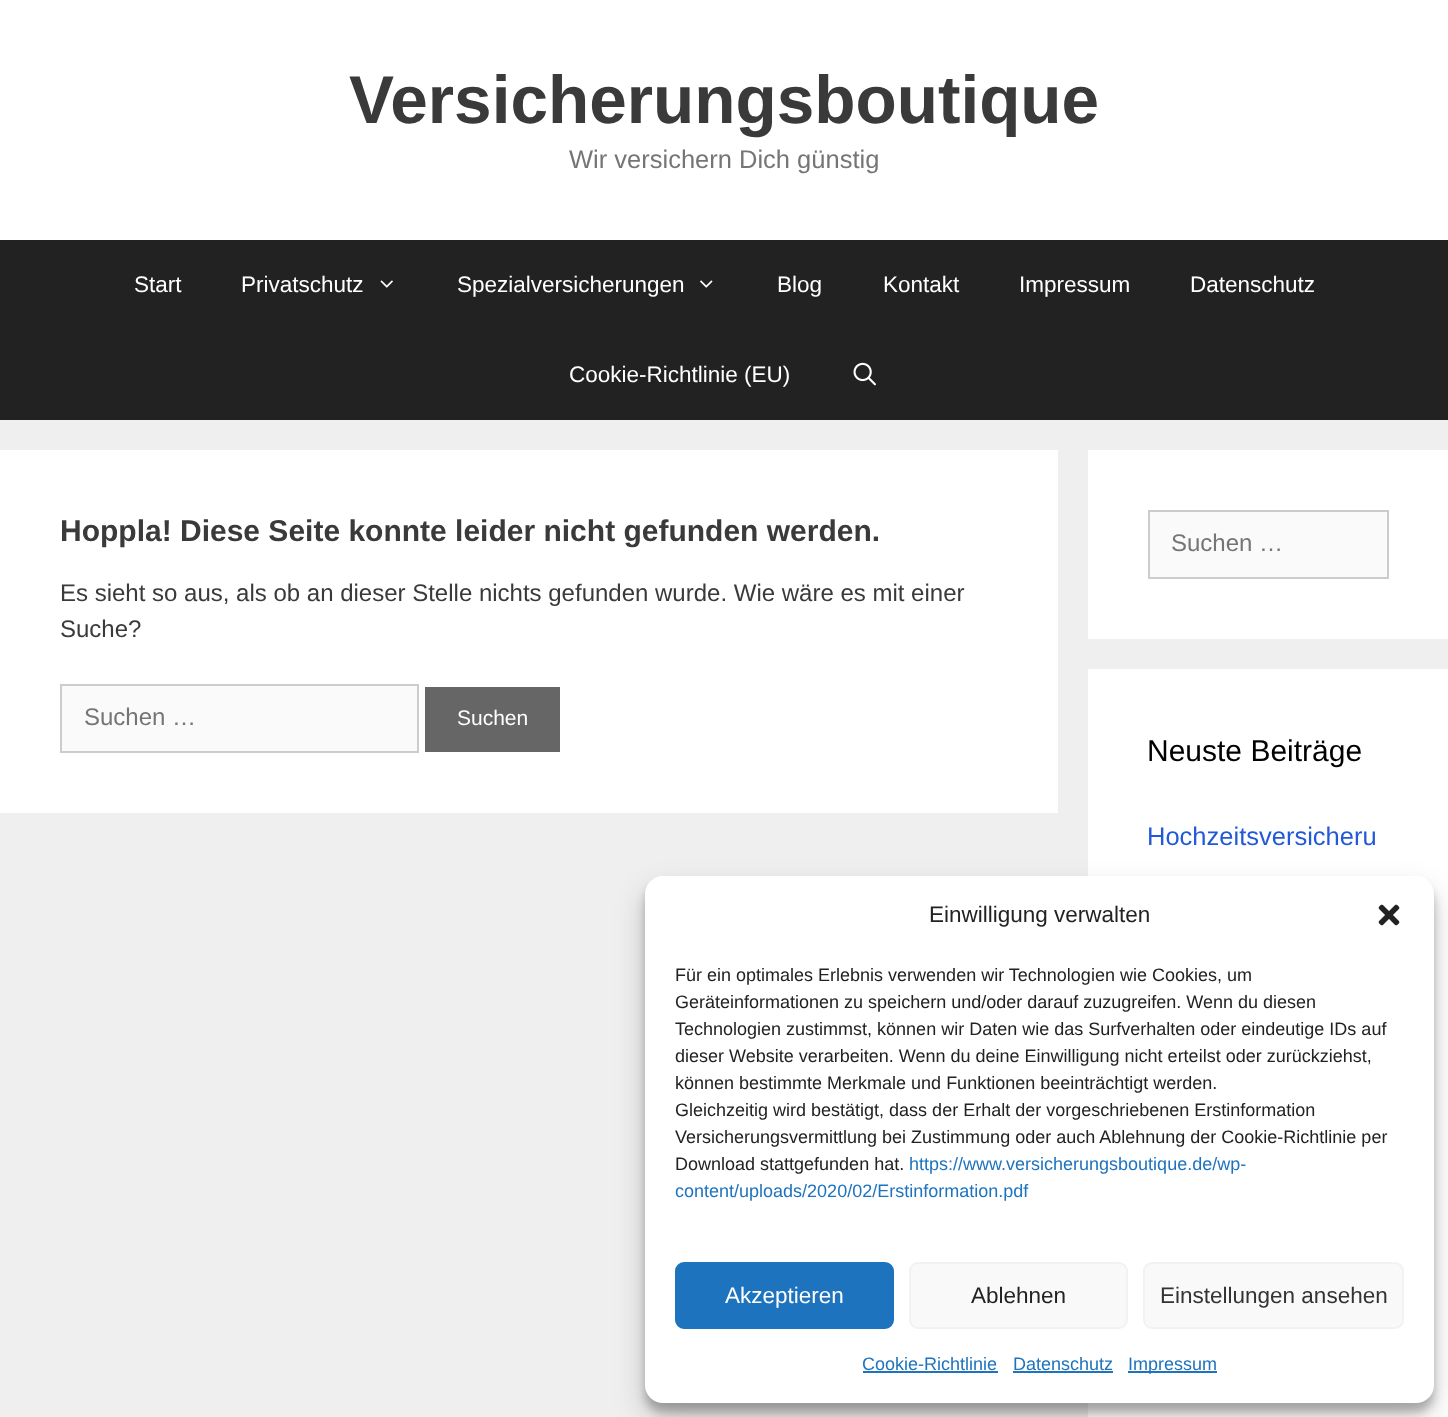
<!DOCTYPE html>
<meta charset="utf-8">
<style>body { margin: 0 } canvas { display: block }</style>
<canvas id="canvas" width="1448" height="1417"></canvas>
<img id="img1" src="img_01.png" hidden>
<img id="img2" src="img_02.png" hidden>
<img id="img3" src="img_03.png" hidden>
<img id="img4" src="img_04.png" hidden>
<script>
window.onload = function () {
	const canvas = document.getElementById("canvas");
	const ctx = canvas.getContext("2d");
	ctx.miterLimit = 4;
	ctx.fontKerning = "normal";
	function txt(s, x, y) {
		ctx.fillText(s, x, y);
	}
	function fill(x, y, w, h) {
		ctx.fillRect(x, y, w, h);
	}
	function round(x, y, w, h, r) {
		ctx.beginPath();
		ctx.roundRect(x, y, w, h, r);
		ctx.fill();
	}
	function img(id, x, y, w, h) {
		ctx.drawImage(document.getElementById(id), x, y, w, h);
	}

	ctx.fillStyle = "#EFEFEF";
	fill(0, 0, 1448, 1417);
	ctx.fillStyle = "#FFFFFF";
	fill(0, 0, 1448, 240);
	ctx.fillStyle = "#222222";
	fill(0, 240, 1448, 180);
	img("img1", 380, 280, 13, 8);
	img("img2", 700, 280, 13, 8);
	img("img3", 853, 362, 23, 24);
	ctx.fillStyle = "#FFFFFF";
	fill(0, 450, 1058, 363);
	ctx.fillStyle = "#FAFAFA";
	ctx.beginPath();
	ctx.rect(61, 685, 357, 67);
	ctx.fill();
	ctx.strokeStyle = "#CCCCCC";
	ctx.lineWidth = 2;
	ctx.stroke();
	ctx.fillStyle = "#666666";
	fill(425, 687, 135, 65);
	ctx.fillStyle = "#FFFFFF";
	fill(1088, 450, 360, 189);
	ctx.fillStyle = "#FAFAFA";
	ctx.beginPath();
	ctx.rect(1149, 511, 239, 67);
	ctx.fill();
	ctx.stroke();
	ctx.fillStyle = "#FFFFFF";
	fill(1088, 669, 360, 748);
	ctx.fillStyle = "rgba(0, 0, 0, 0.23)";
	ctx.filter = "blur(4.5px)";
	ctx.beginPath();
	ctx.roundRect(645, 885, 789, 527, 18);
	ctx.fill();
	ctx.filter = "none";
	ctx.fillStyle = "rgba(0, 0, 0, 0.19)";
	ctx.filter = "blur(15px)";
	ctx.beginPath();
	ctx.roundRect(645, 891, 789, 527, 18);
	ctx.fill();
	ctx.filter = "none";
	ctx.fillStyle = "#FFFFFF";
	round(645, 876, 789, 527, 18);
	img("img4", 1378, 904, 22, 22);
	ctx.fillStyle = "#1E73BE";
	ctx.beginPath();
	ctx.roundRect(676, 1263, 217, 65, 8);
	ctx.fill();
	ctx.strokeStyle = "#1E73BE";
	ctx.stroke();
	ctx.fillStyle = "#F9F9F9";
	ctx.beginPath();
	ctx.roundRect(910, 1263, 217, 65, 8);
	ctx.fill();
	ctx.strokeStyle = "#F2F2F2";
	ctx.stroke();
	ctx.beginPath();
	ctx.roundRect(1144, 1263, 259, 65, 8);
	ctx.fill();
	ctx.stroke();
	ctx.fillStyle = "#1E73BE";
	fill(863, 1371, 135, 2);
	fill(1013, 1371, 100, 2);
	fill(1128, 1371, 89, 2);
	ctx.font = "bold 67.5px Liberation Sans";
	ctx.fillStyle = "#3A3A3A";
	txt("Versicherungsboutique", 349, 123);
	ctx.font = "25.5px Liberation Sans";
	ctx.fillStyle = "#757575";
	txt("Wir versichern Dich günstig", 569, 168);
	ctx.font = "22.5px Liberation Sans";
	ctx.fillStyle = "#FFFFFF";
	txt("Start", 134, 292);
	txt("Privatschutz", 241, 292);
	txt("Spezialversicherungen", 457, 292);
	txt("Blog", 777, 292);
	txt("Kontakt", 883, 292);
	txt("Impressum", 1019, 292);
	txt("Datenschutz", 1190, 292);
	txt("Cookie-Richtlinie (EU)", 569, 382);
	ctx.font = "bold 30px Liberation Sans";
	ctx.fillStyle = "#3A3A3A";
	txt("Hoppla! Diese Seite konnte leider nicht gefunden werden.", 60, 541);
	ctx.font = "24px Liberation Sans";
	txt("Es sieht so aus, als ob an dieser Stelle nichts gefunden wurde. Wie wäre es mit einer", 60, 601);
	txt("Suche?", 60, 637);
	ctx.fillStyle = "#757575";
	txt("Suchen …", 84, 725);
	ctx.font = "21px Liberation Sans";
	ctx.fillStyle = "#FFFFFF";
	txt("Suchen", 457, 725);
	ctx.font = "24px Liberation Sans";
	ctx.fillStyle = "#757575";
	txt("Suchen …", 1171, 551);
	ctx.font = "30px Liberation Sans";
	ctx.fillStyle = "#000000";
	txt("Neuste Beiträge", 1147, 761);
	ctx.font = "25.5px Liberation Sans";
	ctx.fillStyle = "#2259D8";
	txt("Hochzeitsversicheru", 1147, 845);
	ctx.font = "22.5px Liberation Sans";
	ctx.fillStyle = "#222222";
	txt("Einwilligung verwalten", 929, 922);
	ctx.font = "18px Liberation Sans";
	txt("Für ein optimales Erlebnis verwenden wir Technologien wie Cookies, um", 675, 981);
	txt("Geräteinformationen zu speichern und/oder darauf zuzugreifen. Wenn du diesen", 675, 1008);
	txt("Technologien zustimmst, können wir Daten wie das Surfverhalten oder eindeutige IDs auf", 675, 1035);
	txt("dieser Website verarbeiten. Wenn du deine Einwilligung nicht erteilst oder zurückziehst,", 675, 1062);
	txt("können bestimmte Merkmale und Funktionen beeinträchtigt werden.", 675, 1089);
	txt("Gleichzeitig wird bestätigt, dass der Erhalt der vorgeschriebenen Erstinformation", 675, 1116);
	txt("Versicherungsvermittlung bei Zustimmung oder auch Ablehnung der Cookie-Richtlinie per", 675, 1143);
	txt("Download stattgefunden hat.", 675, 1170);
	ctx.fillStyle = "#1E73BE";
	txt("https://www.versicherungsboutique.de/wp-", 909, 1170);
	txt("content/uploads/2020/02/Erstinformation.pdf", 675, 1197);
	ctx.font = "22.5px Liberation Sans";
	ctx.fillStyle = "#FFFFFF";
	txt("Akzeptieren", 725, 1303);
	ctx.fillStyle = "#222222";
	txt("Ablehnen", 971, 1303);
	ctx.fillStyle = "#333333";
	txt("Einstellungen ansehen", 1160, 1303);
	ctx.font = "18px Liberation Sans";
	ctx.fillStyle = "#1E73BE";
	txt("Cookie-Richtlinie", 862, 1370);
	txt("Datenschutz", 1013, 1370);
	txt("Impressum", 1128, 1370);
};
</script>
